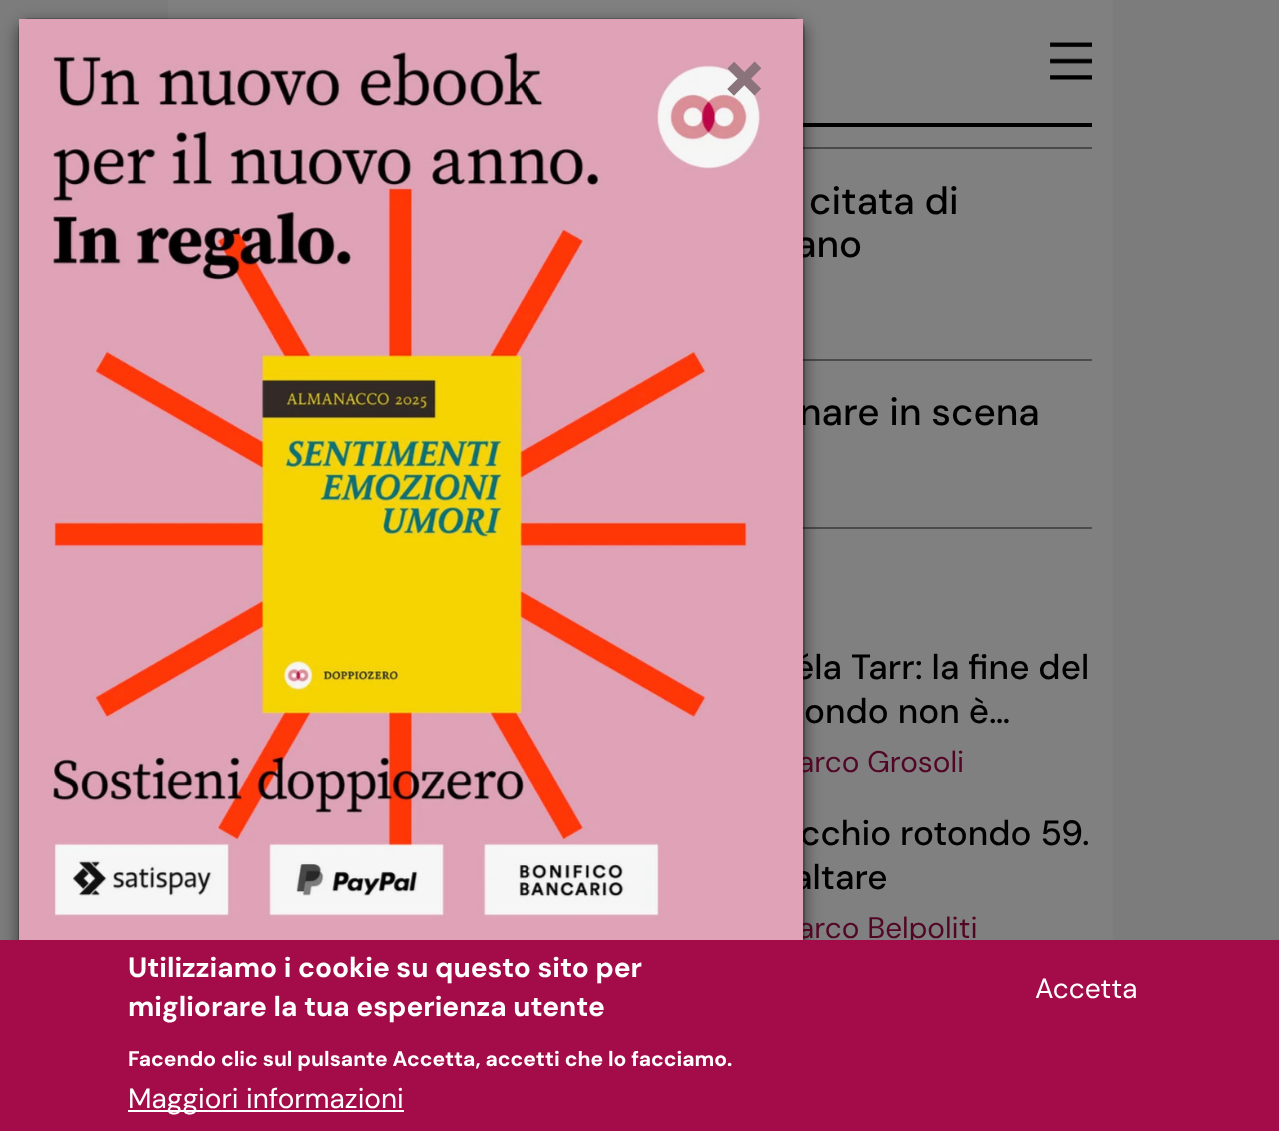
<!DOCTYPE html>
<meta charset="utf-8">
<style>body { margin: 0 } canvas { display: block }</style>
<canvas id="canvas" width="1279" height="1131"></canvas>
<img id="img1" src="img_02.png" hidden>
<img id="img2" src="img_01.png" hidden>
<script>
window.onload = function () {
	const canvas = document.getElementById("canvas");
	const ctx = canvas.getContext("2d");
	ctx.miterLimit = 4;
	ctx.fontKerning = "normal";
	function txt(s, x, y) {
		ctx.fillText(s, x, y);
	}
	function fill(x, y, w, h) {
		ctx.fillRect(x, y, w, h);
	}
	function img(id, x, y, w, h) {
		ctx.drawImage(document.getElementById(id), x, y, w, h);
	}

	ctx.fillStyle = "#7C7C7C";
	fill(0, 0, 1279, 1131);
	ctx.fillStyle = "#808080";
	fill(168, 0, 945, 940);
	ctx.fillStyle = "#000000";
	fill(803, 123, 289, 4);
	ctx.fillStyle = "#4B4B4A";
	fill(803, 147, 289, 2);
	fill(803, 359, 289, 2);
	fill(803, 527, 289, 2);
	ctx.fillStyle = "rgba(0, 0, 0, 0.5)";
	ctx.filter = "blur(8px)";
	ctx.beginPath();
	ctx.roundRect(18, 23, 787, 945, 11);
	ctx.fill();
	ctx.filter = "none";
	img("img1", 1050, 42, 42, 38);
	ctx.font = "500 38.5px DM Sans";
	ctx.fillStyle = "#000000";
	txt("citata di", 809, 214);
	txt("ano", 795, 257);
	txt("nare in scena", 799, 425);
	ctx.font = "500 35px DM Sans";
	txt("éla Tarr: la fine del", 794, 679);
	txt("ondo non è…", 804, 723);
	ctx.font = "29.75px DM Sans";
	ctx.fillStyle = "#520625";
	txt("arco Grosoli", 798, 772);
	ctx.font = "500 35px DM Sans";
	ctx.fillStyle = "#000000";
	txt("cchio rotondo 59.", 800, 845);
	txt("altare", 793, 889);
	ctx.font = "29.75px DM Sans";
	ctx.fillStyle = "#520625";
	txt("arco Belpoliti", 798, 938);
	ctx.beginPath();
	ctx.roundRect(19, 19, 785, 943, 10);
	ctx.strokeStyle = "rgba(0, 0, 0, 0.2)";
	ctx.lineWidth = 2;
	ctx.stroke();
	img("img2", 19, 19, 784, 921);
	ctx.font = "bold 84px DM Sans";
	ctx.fillStyle = "#8A737B";
	txt("×", 720, 103);
	ctx.fillStyle = "#A30C49";
	fill(0, 940, 1279, 191);
	ctx.font = "bold 28px DM Sans";
	ctx.fillStyle = "#FFFFFF";
	txt("Utilizziamo i cookie su questo sito per", 128, 977);
	txt("migliorare la tua esperienza utente", 128, 1016);
	ctx.font = "bold 21px DM Sans";
	txt("Facendo clic sul pulsante Accetta, accetti che lo facciamo.", 128, 1066);
	fill(128, 1110, 276, 2);
	ctx.font = "28px DM Sans";
	txt("Maggiori informazioni", 128, 1108);
	txt("Accetta", 1035, 998);
};
</script>
